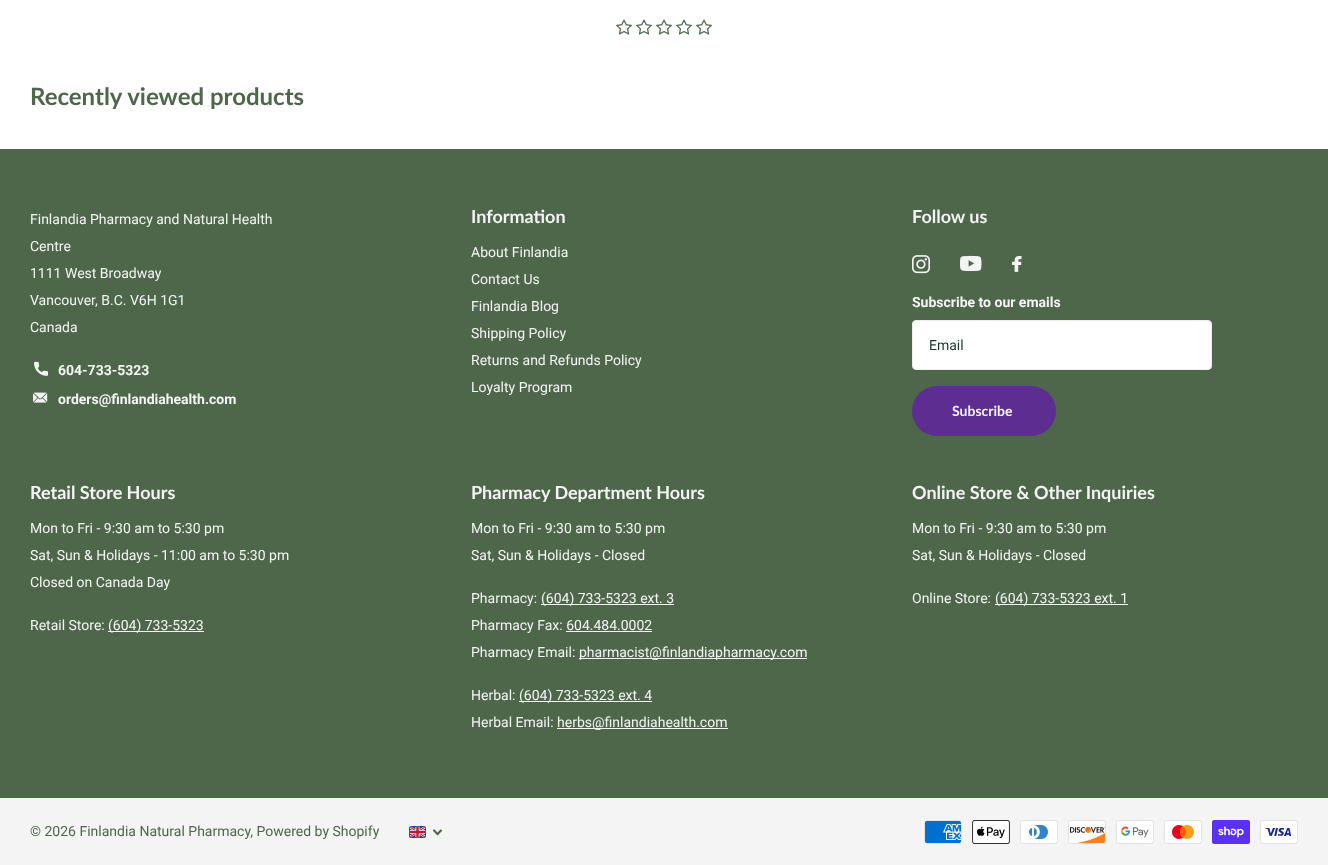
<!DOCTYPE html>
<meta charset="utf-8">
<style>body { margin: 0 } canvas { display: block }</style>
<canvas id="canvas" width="1328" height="865"></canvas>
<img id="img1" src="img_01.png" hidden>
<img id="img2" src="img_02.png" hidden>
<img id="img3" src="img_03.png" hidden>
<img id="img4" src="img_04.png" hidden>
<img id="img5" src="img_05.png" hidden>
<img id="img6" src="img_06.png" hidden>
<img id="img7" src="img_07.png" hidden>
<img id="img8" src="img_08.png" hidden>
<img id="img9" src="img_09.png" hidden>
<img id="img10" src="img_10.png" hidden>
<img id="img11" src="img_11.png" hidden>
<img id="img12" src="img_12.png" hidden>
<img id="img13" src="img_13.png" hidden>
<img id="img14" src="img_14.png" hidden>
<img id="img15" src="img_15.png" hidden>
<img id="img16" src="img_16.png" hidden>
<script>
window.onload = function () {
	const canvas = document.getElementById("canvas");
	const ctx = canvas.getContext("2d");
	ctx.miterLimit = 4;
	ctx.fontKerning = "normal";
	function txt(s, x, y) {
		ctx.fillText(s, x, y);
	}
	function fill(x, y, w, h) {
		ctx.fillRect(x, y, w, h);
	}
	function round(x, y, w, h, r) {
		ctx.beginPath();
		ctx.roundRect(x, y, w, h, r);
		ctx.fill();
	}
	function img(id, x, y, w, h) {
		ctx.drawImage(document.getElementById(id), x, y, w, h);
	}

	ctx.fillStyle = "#FFFFFF";
	fill(0, 0, 1328, 865);
	img("img1", 616, 19, 16, 16);
	img("img1", 636, 19, 16, 16);
	img("img1", 656, 19, 16, 16);
	img("img1", 676, 19, 16, 16);
	img("img1", 696, 19, 16, 16);
	ctx.fillStyle = "#4E674B";
	fill(0, 149, 1328, 649);
	img("img2", 34, 361, 14, 15);
	img("img3", 33, 392, 15, 11);
	img("img4", 912, 255, 18, 19);
	img("img5", 960, 255, 22, 17);
	img("img6", 1012, 256, 10, 16);
	ctx.fillStyle = "#FFFFFF";
	ctx.beginPath();
	ctx.roundRect(912.5, 320.5, 299, 49, 3.5);
	ctx.fill();
	ctx.strokeStyle = "#ECEDEC";
	ctx.stroke();
	ctx.fillStyle = "#5E2D91";
	round(912, 386, 144, 50, 25);
	ctx.fillStyle = "#F4F4F4";
	fill(108, 631, 96, 1);
	fill(541, 604, 133, 1);
	fill(566, 631, 86, 1);
	fill(579, 658, 228, 1);
	fill(519, 701, 133, 1);
	fill(557, 728, 171, 1);
	fill(995, 604, 133, 1);
	fill(0, 798, 1328, 67);
	img("img7", 409, 826, 17, 12);
	img("img8", 433, 829, 9, 7);
	img("img9", 924, 820, 38, 24);
	img("img10", 972, 820, 38, 24);
	img("img11", 1020, 820, 38, 24);
	img("img12", 1068, 820, 38, 24);
	img("img13", 1116, 820, 38, 24);
	img("img14", 1164, 820, 38, 24);
	img("img15", 1212, 820, 38, 24);
	img("img16", 1260, 820, 38, 24);
	ctx.font = "bold 24px Lato";
	ctx.fillStyle = "#4E674B";
	txt("Recently viewed products", 30, 105);
	ctx.font = "14px Roboto";
	ctx.fillStyle = "#F4F4F4";
	txt("Finlandia Pharmacy and Natural Health", 30, 224);
	txt("Centre", 30, 251);
	txt("1111 West Broadway", 30, 278);
	txt("Vancouver, B.C. V6H 1G1", 30, 305);
	txt("Canada", 30, 332);
	ctx.font = "bold 14px Roboto";
	txt("604-733-5323", 58, 375);
	txt("orders@finlandiahealth.com", 58, 404);
	ctx.font = "bold 18px Lato";
	txt("Information", 471, 223);
	ctx.font = "14px Roboto";
	txt("About Finlandia", 471, 257);
	txt("Contact Us", 471, 284);
	txt("Finlandia Blog", 471, 311);
	txt("Shipping Policy", 471, 338);
	txt("Returns and Refunds Policy", 471, 365);
	txt("Loyalty Program", 471, 392);
	ctx.font = "bold 18px Lato";
	txt("Follow us", 912, 223);
	ctx.font = "bold 14px Roboto";
	txt("Subscribe to our emails", 912, 307);
	ctx.font = "14px Roboto";
	ctx.fillStyle = "#1C3830";
	txt("Email", 929, 350);
	ctx.font = "bold 14px Lato";
	ctx.fillStyle = "#F4F4F4";
	txt("Subscribe", 952, 416);
	ctx.font = "bold 18px Lato";
	txt("Retail Store Hours", 30, 499);
	ctx.font = "14px Roboto";
	txt("Mon to Fri - 9:30 am to 5:30 pm", 30, 533);
	txt("Sat, Sun & Holidays - 11:00 am to 5:30 pm", 30, 560);
	txt("Closed on Canada Day", 30, 587);
	txt("Retail Store:", 30, 630);
	txt("(604) 733-5323", 108, 630);
	ctx.font = "bold 18px Lato";
	txt("Pharmacy Department Hours", 471, 499);
	ctx.font = "14px Roboto";
	txt("Mon to Fri - 9:30 am to 5:30 pm", 471, 533);
	txt("Sat, Sun & Holidays - Closed", 471, 560);
	txt("Pharmacy:", 471, 603);
	txt("(604) 733-5323 ext. 3", 541, 603);
	txt("Pharmacy Fax: 604.484.0002", 471, 630);
	txt("Pharmacy Email:", 471, 657);
	txt("pharmacist@finlandiapharmacy.com", 579, 657);
	txt("Herbal:", 471, 700);
	txt("(604) 733-5323 ext. 4", 519, 700);
	txt("Herbal Email:", 471, 727);
	txt("herbs@finlandiahealth.com", 557, 727);
	ctx.font = "bold 18px Lato";
	txt("Online Store & Other Inquiries", 912, 499);
	ctx.font = "14px Roboto";
	txt("Mon to Fri - 9:30 am to 5:30 pm", 912, 533);
	txt("Sat, Sun & Holidays - Closed", 912, 560);
	txt("Online Store:", 912, 603);
	txt("(604) 733-5323 ext. 1", 995, 603);
	ctx.fillStyle = "#4E674B";
	txt("© 2026 Finlandia Natural Pharmacy, Powered by Shopify", 30, 836);
};
</script>
